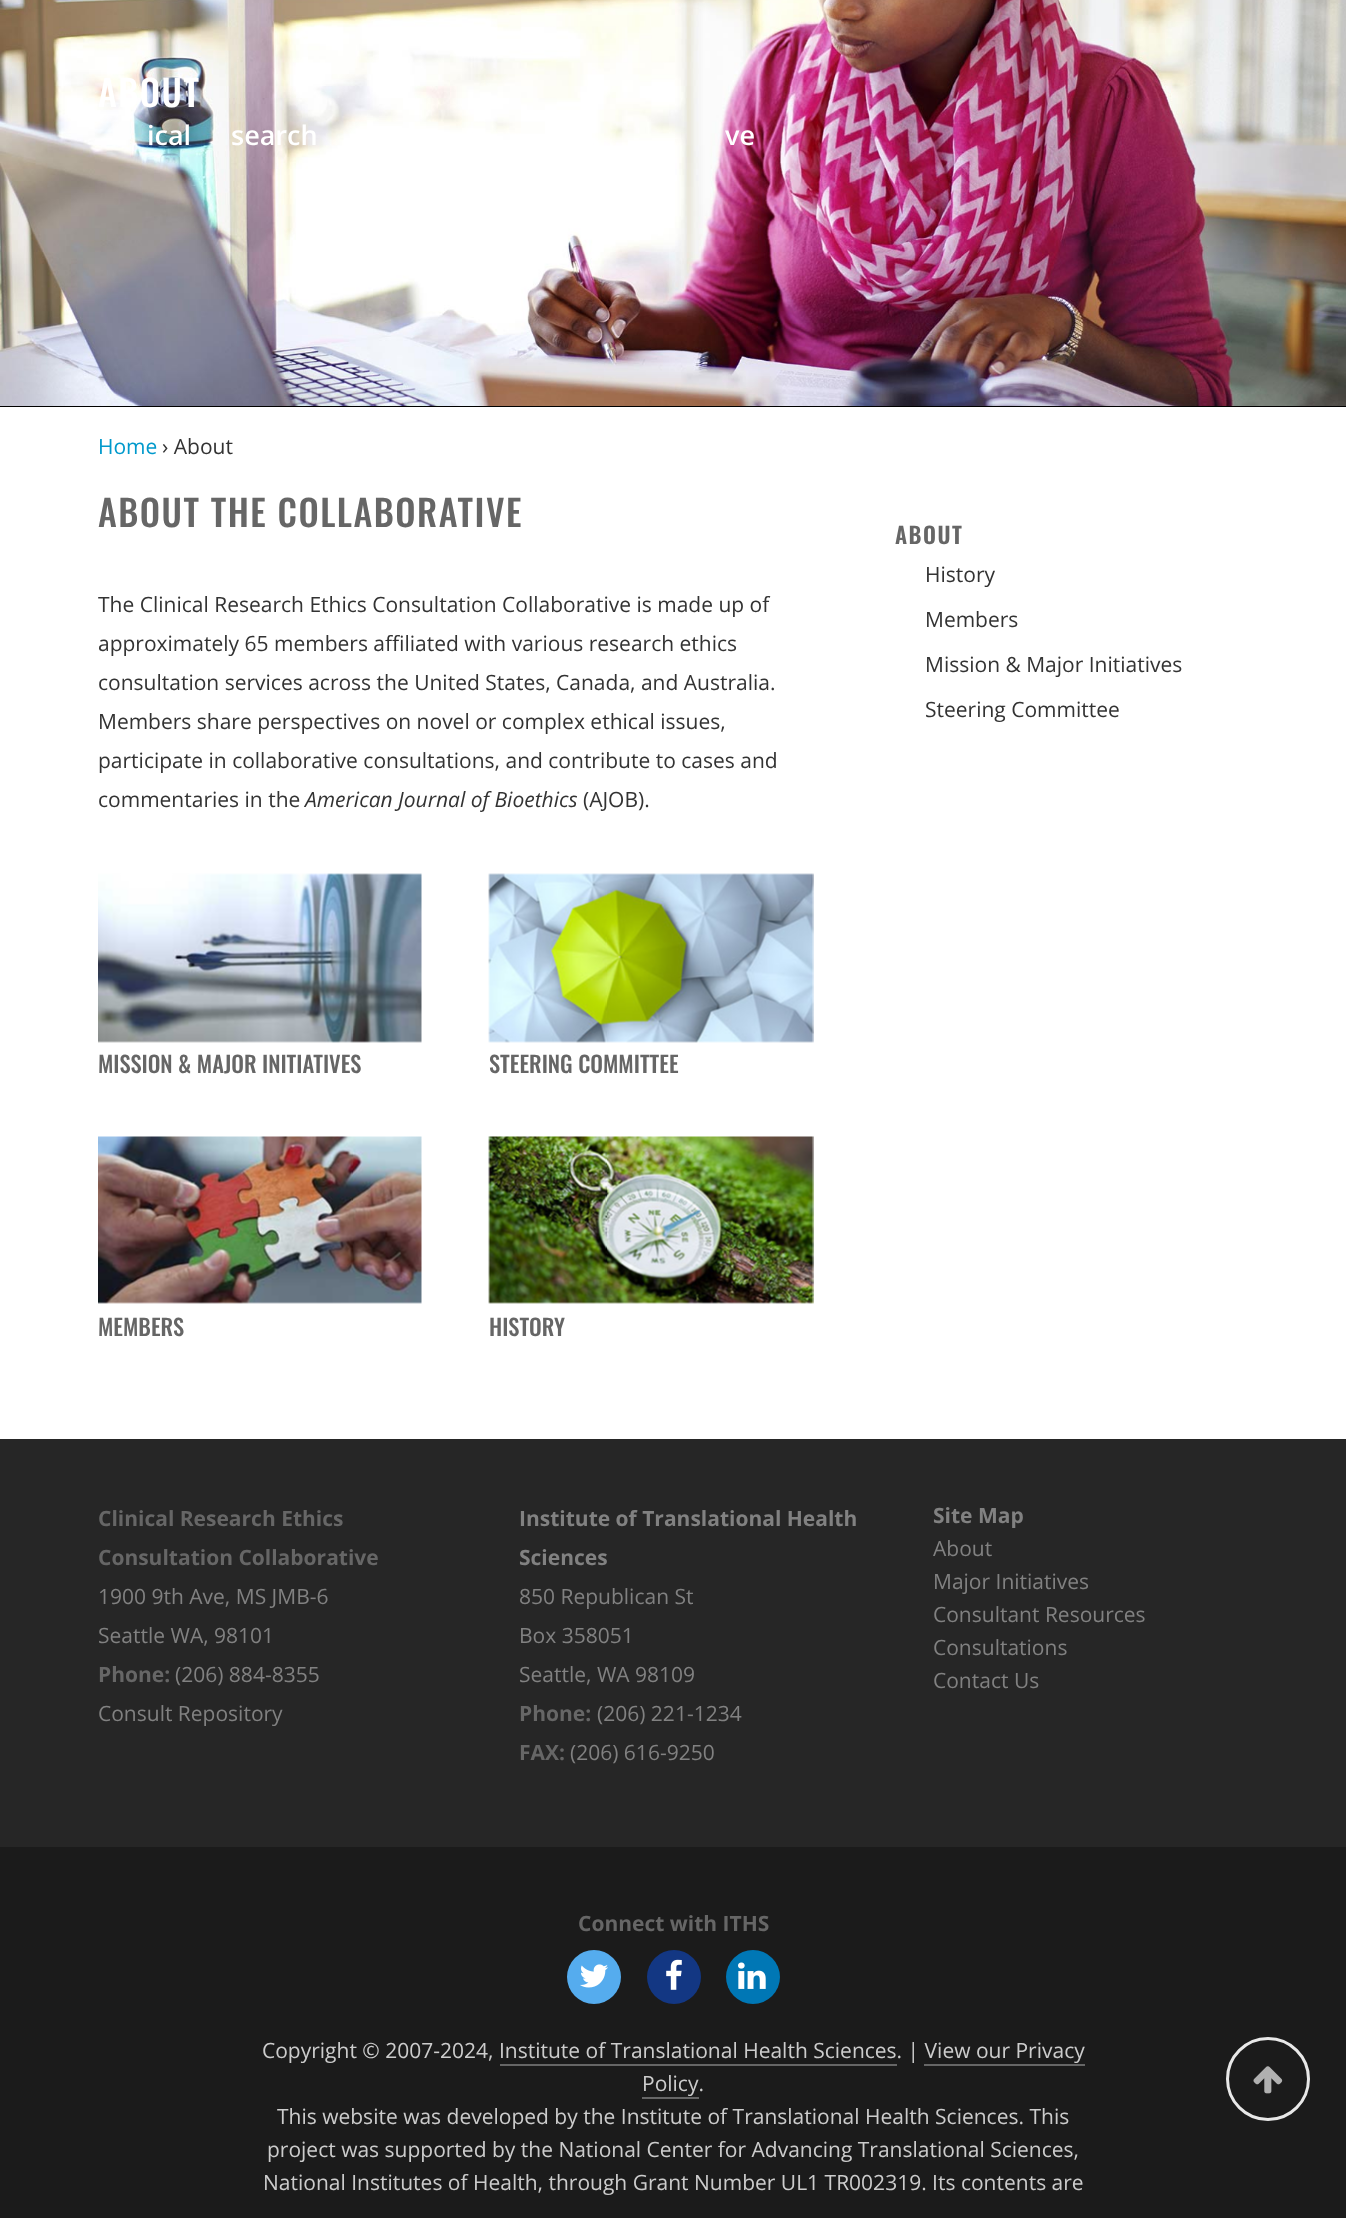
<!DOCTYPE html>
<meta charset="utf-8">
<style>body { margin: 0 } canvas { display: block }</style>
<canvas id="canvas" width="1346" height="2218"></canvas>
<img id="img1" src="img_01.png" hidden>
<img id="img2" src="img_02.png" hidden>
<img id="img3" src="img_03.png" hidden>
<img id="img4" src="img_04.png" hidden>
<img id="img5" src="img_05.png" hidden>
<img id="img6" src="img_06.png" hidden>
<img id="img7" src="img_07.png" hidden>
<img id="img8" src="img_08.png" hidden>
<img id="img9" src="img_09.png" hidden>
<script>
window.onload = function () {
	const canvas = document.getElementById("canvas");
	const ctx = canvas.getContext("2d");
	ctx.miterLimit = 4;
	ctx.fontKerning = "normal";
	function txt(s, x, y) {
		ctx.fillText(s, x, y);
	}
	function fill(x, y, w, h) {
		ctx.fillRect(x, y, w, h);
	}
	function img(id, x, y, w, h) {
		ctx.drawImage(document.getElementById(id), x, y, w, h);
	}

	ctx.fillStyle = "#FFFFFF";
	fill(0, 0, 1346, 2218);
	ctx.fillStyle = "#000000";
	fill(0, 406, 1346, 1);
	img("img1", 0, 0, 1346, 406);
	img("img2", 98, 873, 324, 170);
	img("img3", 488, 873, 326, 170);
	img("img4", 98, 1136, 324, 168);
	img("img5", 488, 1136, 326, 168);
	ctx.fillStyle = "#262626";
	fill(0, 1439, 1346, 408);
	ctx.fillStyle = "#1B1B1B";
	fill(0, 1847, 1346, 371);
	ctx.fillStyle = "#55ACEE";
	ctx.beginPath();
	ctx.arc(594, 1977, 27, 0, Math.PI * 2);
	ctx.fill();
	img("img6", 580, 1964, 28, 24);
	ctx.fillStyle = "#133783";
	ctx.beginPath();
	ctx.arc(674, 1977, 27, 0, Math.PI * 2);
	ctx.fill();
	img("img7", 666, 1959, 16, 31);
	ctx.fillStyle = "#0077B5";
	ctx.beginPath();
	ctx.arc(753, 1977, 27, 0, Math.PI * 2);
	ctx.fill();
	img("img8", 738, 1962, 28, 27);
	ctx.fillStyle = "#666666";
	fill(500, 2064, 397, 2);
	fill(924, 2064, 161, 2);
	fill(642, 2097, 57, 2);
	ctx.beginPath();
	ctx.arc(1268, 2079, 40.5, 0, Math.PI * 2);
	ctx.strokeStyle = "#E8E8E8";
	ctx.lineWidth = 3;
	ctx.stroke();
	img("img9", 1253, 2066, 30, 28);
	ctx.letterSpacing = "1.5px";
	ctx.font = "500 36px Oswald";
	ctx.fillStyle = "#FFFFFF";
	txt("ABOUT", 98, 107);
	ctx.letterSpacing = "0px";
	ctx.font = "600 27px Open Sans";
	txt("ical", 147, 145);
	txt("search", 231, 145);
	txt("ve", 725, 145);
	ctx.font = "21px Open Sans";
	ctx.fillStyle = "#0099CC";
	txt("Home", 98, 454);
	ctx.fillStyle = "#333333";
	txt("› About", 162, 454);
	ctx.letterSpacing = "1.5px";
	ctx.font = "500 36px Oswald";
	ctx.fillStyle = "#666666";
	txt("ABOUT THE COLLABORATIVE", 98, 527);
	ctx.letterSpacing = "0px";
	ctx.font = "21px Open Sans";
	ctx.fillStyle = "#333333";
	txt("The Clinical Research Ethics Consultation Collaborative is made up of", 98, 612);
	txt("approximately 65 members affiliated with various research ethics", 98, 651);
	txt("consultation services across the United States, Canada, and Australia.", 98, 690);
	txt("Members share perspectives on novel or complex ethical issues,", 98, 729);
	txt("participate in collaborative consultations, and contribute to cases and", 98, 768);
	txt("commentaries in the", 98, 807);
	ctx.font = "italic 21px Open Sans";
	txt("American Journal of Bioethics", 305, 807);
	ctx.font = "21px Open Sans";
	txt("(AJOB).", 583, 807);
	ctx.font = "500 22.5px Oswald";
	ctx.fillStyle = "#666666";
	txt("MISSION & MAJOR INITIATIVES", 98, 1073);
	txt("STEERING COMMITTEE", 489, 1073);
	txt("MEMBERS", 98, 1336);
	txt("HISTORY", 489, 1336);
	ctx.letterSpacing = "1.5px";
	ctx.font = "600 22.5px Oswald";
	txt("ABOUT", 895, 544);
	ctx.letterSpacing = "0px";
	ctx.font = "21px Open Sans";
	ctx.fillStyle = "#333333";
	txt("History", 925, 582);
	txt("Members", 925, 627);
	txt("Mission & Major Initiatives", 925, 672);
	txt("Steering Committee", 925, 717);
	ctx.font = "bold 21px Open Sans";
	ctx.fillStyle = "#666666";
	txt("Clinical Research Ethics", 98, 1526);
	txt("Consultation Collaborative", 98, 1565);
	ctx.font = "21px Open Sans";
	ctx.fillStyle = "#818181";
	txt("1900 9th Ave, MS JMB-6", 98, 1604);
	txt("Seattle WA, 98101", 98, 1643);
	ctx.font = "bold 21px Open Sans";
	ctx.fillStyle = "#666666";
	txt("Phone:", 98, 1682);
	ctx.font = "21px Open Sans";
	ctx.fillStyle = "#818181";
	txt("(206) 884-8355", 175, 1682);
	txt("Consult Repository", 98, 1721);
	ctx.font = "bold 21px Open Sans";
	txt("Institute of Translational Health", 519, 1526);
	txt("Sciences", 519, 1565);
	ctx.font = "21px Open Sans";
	txt("850 Republican St", 519, 1604);
	txt("Box 358051", 519, 1643);
	txt("Seattle, WA 98109", 519, 1682);
	ctx.font = "bold 21px Open Sans";
	ctx.fillStyle = "#666666";
	txt("Phone:", 519, 1721);
	ctx.font = "21px Open Sans";
	ctx.fillStyle = "#818181";
	txt("(206) 221-1234", 597, 1721);
	ctx.font = "bold 21px Open Sans";
	ctx.fillStyle = "#666666";
	txt("FAX:", 519, 1760);
	ctx.font = "21px Open Sans";
	ctx.fillStyle = "#818181";
	txt("(206) 616-9250", 570, 1760);
	ctx.font = "bold 21px Open Sans";
	txt("Site Map", 933, 1523);
	ctx.font = "21px Open Sans";
	txt("About", 933, 1556);
	txt("Major Initiatives", 933, 1589);
	txt("Consultant Resources", 933, 1622);
	txt("Consultations", 933, 1655);
	txt("Contact Us", 933, 1688);
	ctx.font = "bold 21px Open Sans";
	ctx.fillStyle = "#666666";
	txt("Connect with ITHS", 578, 1931);
	ctx.font = "21px Open Sans";
	ctx.fillStyle = "#CCCCCC";
	txt("Copyright © 2007-2024, Institute of Translational Health Sciences. | View our Privacy", 262, 2058);
	txt("Policy.", 642, 2091);
	txt("This website was developed by the Institute of Translational Health Sciences. This", 277, 2124);
	txt("project was supported by the National Center for Advancing Translational Sciences,", 267, 2157);
	txt("National Institutes of Health, through Grant Number UL1 TR002319. Its contents are", 263, 2190);
};
</script>
